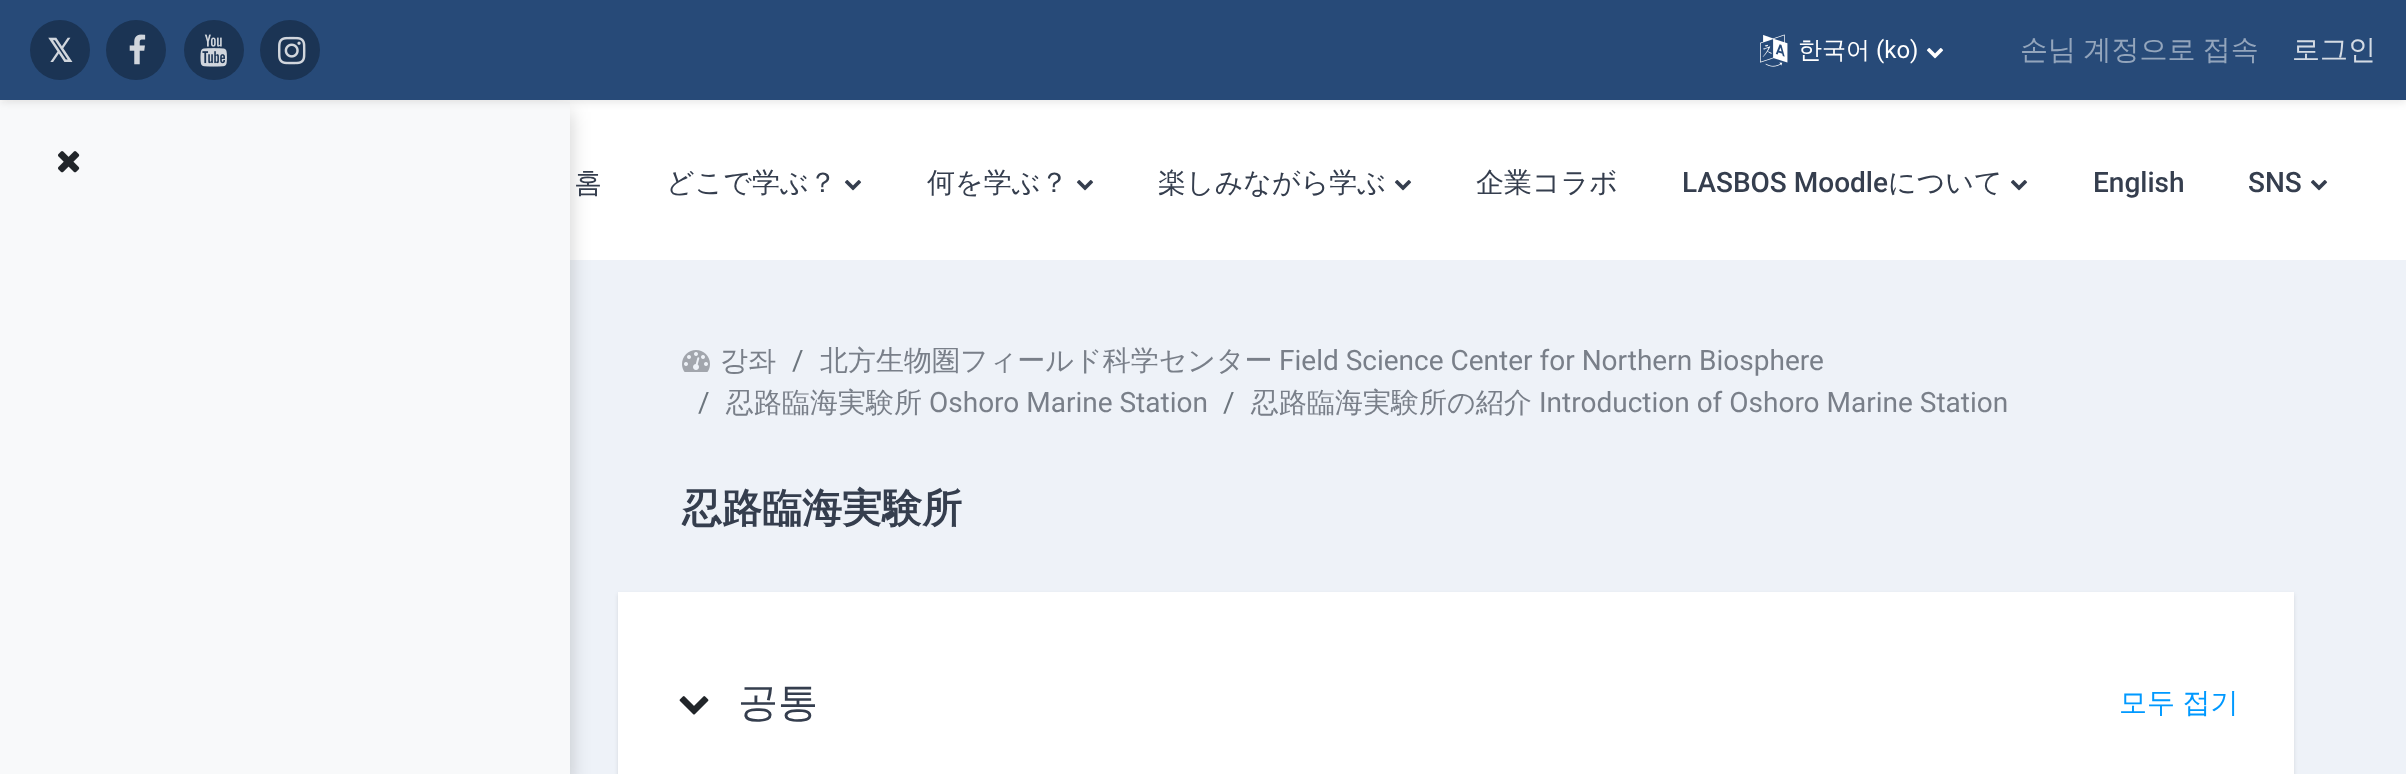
<!DOCTYPE html>
<meta charset="utf-8">
<style>body { margin: 0 } canvas { display: block }</style>
<canvas id="canvas" width="2406" height="774"></canvas>
<img id="img1" src="img_01.png" hidden>
<img id="img2" src="img_02.png" hidden>
<img id="img3" src="img_03.png" hidden>
<img id="img4" src="img_04.png" hidden>
<img id="img5" src="img_05.png" hidden>
<img id="img6" src="img_06.png" hidden>
<img id="img7" src="img_07.png" hidden>
<img id="img8" src="img_08.png" hidden>
<img id="img9" src="img_09.png" hidden>
<script>
window.onload = function () {
	const canvas = document.getElementById("canvas");
	const ctx = canvas.getContext("2d");
	ctx.miterLimit = 4;
	ctx.fontKerning = "normal";
	function txt(s, x, y) {
		ctx.fillText(s, x, y);
	}
	function fill(x, y, w, h) {
		ctx.fillRect(x, y, w, h);
	}
	function img(id, x, y, w, h) {
		ctx.drawImage(document.getElementById(id), x, y, w, h);
	}

	ctx.fillStyle = "#EEF2F8";
	fill(0, 0, 2406, 774);
	ctx.fillStyle = "#FFFFFF";
	fill(0, 100, 2406, 160);
	ctx.fillStyle = "rgba(0, 0, 0, 0.2)";
	ctx.filter = "blur(10px)";
	ctx.beginPath();
	ctx.rect(0, 112, 570, 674);
	ctx.fill();
	ctx.filter = "none";
	ctx.fillStyle = "#F8F9FA";
	fill(0, 102, 570, 672);
	ctx.fillStyle = "rgba(0, 0, 0, 0.1)";
	ctx.filter = "blur(4px)";
	ctx.beginPath();
	ctx.rect(0, 2, 2406, 100);
	ctx.fill();
	ctx.filter = "none";
	ctx.fillStyle = "#274A78";
	fill(0, 0, 2406, 100);
	ctx.fillStyle = "#1B3454";
	ctx.beginPath();
	ctx.arc(60, 50, 30, 0, Math.PI * 2);
	ctx.fill();
	ctx.beginPath();
	ctx.arc(136, 50, 30, 0, Math.PI * 2);
	ctx.fill();
	img("img1", 129, 34, 17, 31);
	ctx.beginPath();
	ctx.arc(214, 50, 30, 0, Math.PI * 2);
	ctx.fill();
	img("img2", 200, 34, 27, 33);
	ctx.beginPath();
	ctx.arc(290, 50, 30, 0, Math.PI * 2);
	ctx.fill();
	img("img3", 278, 36, 28, 29);
	img("img4", 1760, 34, 28, 33);
	img("img5", 1926, 48, 18, 11);
	img("img6", 58, 151, 22, 22);
	img("img7", 844, 180, 18, 11);
	img("img7", 1076, 180, 18, 11);
	img("img7", 1394, 180, 18, 11);
	img("img7", 2010, 180, 18, 11);
	img("img7", 2310, 180, 18, 11);
	img("img8", 682, 350, 28, 22);
	ctx.fillStyle = "rgba(0, 0, 0, 0.1)";
	ctx.filter = "blur(2px)";
	ctx.beginPath();
	ctx.rect(618, 594, 1676, 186);
	ctx.fill();
	ctx.filter = "none";
	ctx.fillStyle = "#FFFFFF";
	fill(618, 592, 1676, 182);
	img("img9", 679, 696, 30, 19);
	ctx.font = "bold 32px DejaVu Sans";
	ctx.fillStyle = "#D1D6DD";
	txt("𝕏", 47, 62);
	ctx.font = "500 24px WenQuanYi Zen Hei";
	ctx.fillStyle = "#FFFFFF";
	txt("한국어", 1798, 58);
	ctx.font = "24px Roboto";
	txt("(ko)", 1876, 58);
	ctx.wordSpacing = "-1px";
	ctx.font = "500 28px WenQuanYi Zen Hei";
	ctx.fillStyle = "#93A5BC";
	txt("손님 계정으로 접속", 2020, 59);
	ctx.wordSpacing = "0px";
	ctx.fillStyle = "#D4DBE4";
	txt("로그인", 2292, 59);
	ctx.fillStyle = "#353E4E";
	txt("홈", 574, 192);
	txt("どこで学ぶ？", 666, 192);
	txt("何を学ぶ？", 927, 192);
	txt("楽しみながら学ぶ", 1158, 192);
	txt("企業コラボ", 1476, 192);
	ctx.font = "500 28px Roboto";
	txt("LASBOS Moodle", 1682, 192);
	ctx.font = "500 28px WenQuanYi Zen Hei";
	txt("について", 1888, 192);
	ctx.font = "500 28px Roboto";
	txt("English", 2093, 192);
	txt("SNS", 2248, 192);
	ctx.font = "500 28px WenQuanYi Zen Hei";
	ctx.fillStyle = "#797F89";
	txt("강좌", 720, 370);
	ctx.font = "28px Roboto";
	ctx.fillStyle = "#6C757D";
	txt("/", 792, 370);
	ctx.font = "500 28px WenQuanYi Zen Hei";
	ctx.fillStyle = "#797F89";
	txt("北方生物圏フィールド科学センター", 820, 370);
	ctx.font = "28px Roboto";
	txt("Field Science Center for Northern Biosphere", 1279, 370);
	ctx.fillStyle = "#6C757D";
	txt("/", 698, 412);
	ctx.font = "500 28px WenQuanYi Zen Hei";
	ctx.fillStyle = "#797F89";
	txt("忍路臨海実験所", 726, 412);
	ctx.font = "28px Roboto";
	txt("Oshoro Marine Station", 929, 412);
	ctx.fillStyle = "#6C757D";
	txt("/", 1223, 412);
	ctx.font = "500 28px WenQuanYi Zen Hei";
	ctx.fillStyle = "#797F89";
	txt("忍路臨海実験所の紹介", 1251, 412);
	ctx.font = "28px Roboto";
	txt("Introduction of Oshoro Marine Station", 1539, 412);
	ctx.font = "bold 40px WenQuanYi Zen Hei";
	ctx.fillStyle = "#353E4E";
	txt("忍路臨海実験所", 682, 522);
	ctx.font = "500 40px WenQuanYi Zen Hei";
	txt("공통", 738, 716);
	ctx.wordSpacing = "-1px";
	ctx.font = "500 28px WenQuanYi Zen Hei";
	ctx.fillStyle = "#0099FF";
	txt("모두 접기", 2119, 712);
};
</script>
